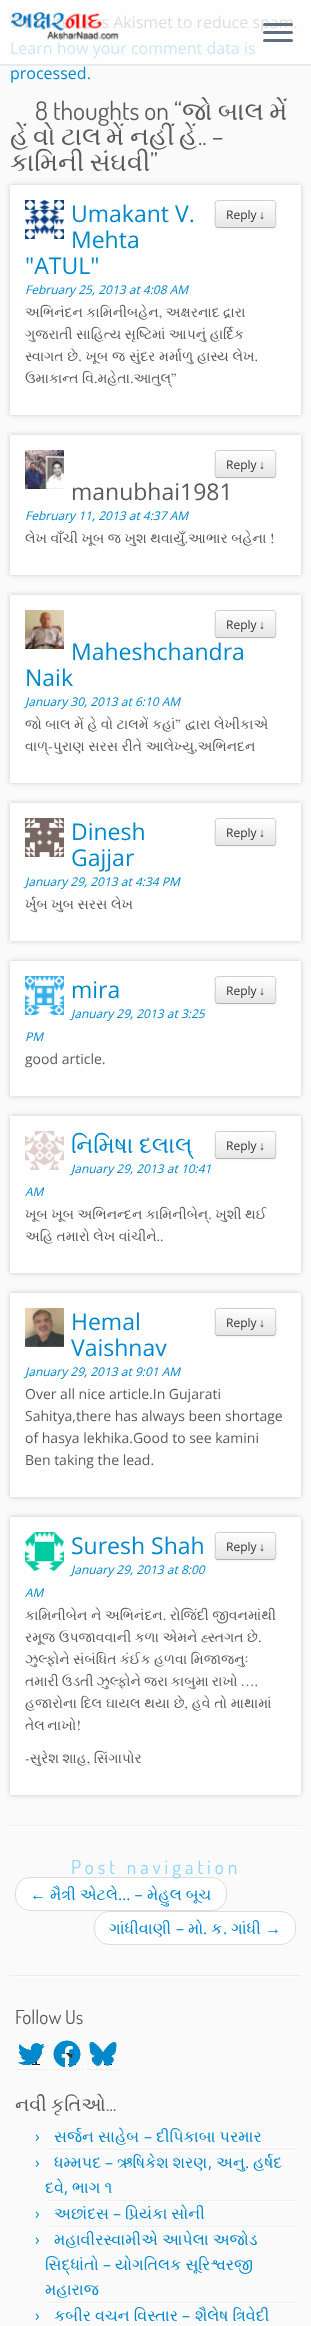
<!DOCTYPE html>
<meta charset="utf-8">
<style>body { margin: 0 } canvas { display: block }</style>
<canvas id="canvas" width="311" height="2326"></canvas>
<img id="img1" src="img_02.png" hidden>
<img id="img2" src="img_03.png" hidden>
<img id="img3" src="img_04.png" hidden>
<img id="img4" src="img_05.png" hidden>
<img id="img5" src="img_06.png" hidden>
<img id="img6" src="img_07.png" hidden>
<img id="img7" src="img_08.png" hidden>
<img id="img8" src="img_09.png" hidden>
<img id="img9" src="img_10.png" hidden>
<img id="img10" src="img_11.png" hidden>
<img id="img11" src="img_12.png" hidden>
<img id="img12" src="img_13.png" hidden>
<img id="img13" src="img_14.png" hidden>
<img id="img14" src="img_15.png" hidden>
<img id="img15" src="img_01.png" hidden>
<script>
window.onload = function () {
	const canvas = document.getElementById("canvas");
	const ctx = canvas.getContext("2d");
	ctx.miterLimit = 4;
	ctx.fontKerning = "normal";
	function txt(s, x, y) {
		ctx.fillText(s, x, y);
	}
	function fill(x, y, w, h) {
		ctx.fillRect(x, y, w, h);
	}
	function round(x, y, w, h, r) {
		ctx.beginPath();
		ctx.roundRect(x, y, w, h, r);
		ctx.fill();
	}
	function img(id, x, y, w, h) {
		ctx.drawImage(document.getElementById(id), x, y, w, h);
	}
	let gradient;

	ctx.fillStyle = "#FAFAFA";
	fill(0, 0, 311, 2326);
	ctx.fillStyle = "#FEFEFE";
	fill(0, 0, 311, 64);
	ctx.fillStyle = "#E9EAEE";
	fill(0, 64, 311, 2);
	ctx.fillStyle = "#5F6F81";
	round(263, 39, 30, 3, 1.5);
	ctx.fillStyle = "rgba(0, 0, 0, 0.2)";
	ctx.filter = "blur(2.5px)";
	ctx.beginPath();
	ctx.rect(10, 185, 291, 230);
	ctx.fill();
	ctx.filter = "none";
	ctx.fillStyle = "#FFFFFF";
	fill(10, 185, 291, 230);
	img("img1", 25, 200, 39, 39);
	ctx.fillStyle = "rgba(0, 0, 0, 0.05)";
	ctx.filter = "blur(1px)";
	ctx.beginPath();
	ctx.roundRect(215, 201, 61, 28, 3);
	ctx.fill();
	ctx.filter = "none";
	ctx.save();
	ctx.beginPath();
	ctx.roundRect(215, 200, 61, 28, 3);
	ctx.clip();
	gradient = ctx.createLinearGradient(246, 201, 246, 227);
	gradient.addColorStop(0, "#FFFFFF");
	gradient.addColorStop(1, "#E6E6E6");
	ctx.fillStyle = gradient;
	fill(215, 201, 61, 26);
	ctx.restore();
	ctx.beginPath();
	ctx.moveTo(275, 227);
	ctx.lineTo(273, 227.5);
	ctx.lineTo(218, 227.5);
	ctx.lineTo(216, 227);
	ctx.strokeStyle = "#B3B3B3";
	ctx.stroke();
	ctx.beginPath();
	ctx.moveTo(216, 227);
	ctx.bezierCurveTo(214.5, 225, 215.5, 216.5, 215.5, 214);
	ctx.bezierCurveTo(215.5, 199, 212.5, 200.5, 227, 200.5);
	ctx.lineTo(264, 200.5);
	ctx.bezierCurveTo(278.5, 200.5, 275.5, 199, 275.5, 214);
	ctx.bezierCurveTo(275.5, 216.5, 276.5, 225, 275, 227);
	ctx.strokeStyle = "#CCCCCC";
	ctx.stroke();
	ctx.fillStyle = "rgba(0, 0, 0, 0.2)";
	ctx.filter = "blur(2.5px)";
	ctx.beginPath();
	ctx.rect(10, 435, 291, 140);
	ctx.fill();
	ctx.filter = "none";
	ctx.fillStyle = "#FFFFFF";
	fill(10, 435, 291, 140);
	img("img2", 25, 450, 39, 39);
	ctx.fillStyle = "rgba(0, 0, 0, 0.05)";
	ctx.filter = "blur(1px)";
	ctx.beginPath();
	ctx.roundRect(215, 451, 61, 28, 3);
	ctx.fill();
	ctx.filter = "none";
	ctx.save();
	ctx.beginPath();
	ctx.roundRect(215, 450, 61, 28, 3);
	ctx.clip();
	gradient = ctx.createLinearGradient(246, 451, 246, 477);
	gradient.addColorStop(0, "#FFFFFF");
	gradient.addColorStop(1, "#E6E6E6");
	ctx.fillStyle = gradient;
	fill(215, 451, 61, 26);
	ctx.restore();
	ctx.beginPath();
	ctx.moveTo(275, 477);
	ctx.lineTo(273, 477.5);
	ctx.lineTo(218, 477.5);
	ctx.lineTo(216, 477);
	ctx.strokeStyle = "#B3B3B3";
	ctx.stroke();
	ctx.beginPath();
	ctx.moveTo(216, 477);
	ctx.bezierCurveTo(214.5, 475, 215.5, 466.5, 215.5, 464);
	ctx.bezierCurveTo(215.5, 449, 212.5, 450.5, 227, 450.5);
	ctx.lineTo(264, 450.5);
	ctx.bezierCurveTo(278.5, 450.5, 275.5, 449, 275.5, 464);
	ctx.bezierCurveTo(275.5, 466.5, 276.5, 475, 275, 477);
	ctx.strokeStyle = "#CCCCCC";
	ctx.stroke();
	ctx.fillStyle = "rgba(0, 0, 0, 0.2)";
	ctx.filter = "blur(2.5px)";
	ctx.beginPath();
	ctx.rect(10, 595, 291, 188);
	ctx.fill();
	ctx.filter = "none";
	ctx.fillStyle = "#FFFFFF";
	fill(10, 595, 291, 188);
	img("img3", 25, 610, 39, 39);
	ctx.fillStyle = "rgba(0, 0, 0, 0.05)";
	ctx.filter = "blur(1px)";
	ctx.beginPath();
	ctx.roundRect(215, 611, 61, 28, 3);
	ctx.fill();
	ctx.filter = "none";
	ctx.save();
	ctx.beginPath();
	ctx.roundRect(215, 610, 61, 28, 3);
	ctx.clip();
	gradient = ctx.createLinearGradient(246, 611, 246, 637);
	gradient.addColorStop(0, "#FFFFFF");
	gradient.addColorStop(1, "#E6E6E6");
	ctx.fillStyle = gradient;
	fill(215, 611, 61, 26);
	ctx.restore();
	ctx.beginPath();
	ctx.moveTo(275, 637);
	ctx.lineTo(273, 637.5);
	ctx.lineTo(218, 637.5);
	ctx.lineTo(216, 637);
	ctx.strokeStyle = "#B3B3B3";
	ctx.stroke();
	ctx.beginPath();
	ctx.moveTo(216, 637);
	ctx.bezierCurveTo(214.5, 635, 215.5, 626.5, 215.5, 624);
	ctx.bezierCurveTo(215.5, 609, 212.5, 610.5, 227, 610.5);
	ctx.lineTo(264, 610.5);
	ctx.bezierCurveTo(278.5, 610.5, 275.5, 609, 275.5, 624);
	ctx.bezierCurveTo(275.5, 626.5, 276.5, 635, 275, 637);
	ctx.strokeStyle = "#CCCCCC";
	ctx.stroke();
	ctx.fillStyle = "rgba(0, 0, 0, 0.2)";
	ctx.filter = "blur(2.5px)";
	ctx.beginPath();
	ctx.rect(10, 803, 291, 138);
	ctx.fill();
	ctx.filter = "none";
	ctx.fillStyle = "#FFFFFF";
	fill(10, 803, 291, 138);
	img("img4", 25, 818, 39, 39);
	ctx.fillStyle = "rgba(0, 0, 0, 0.05)";
	ctx.filter = "blur(1px)";
	ctx.beginPath();
	ctx.roundRect(215, 819, 61, 28, 3);
	ctx.fill();
	ctx.filter = "none";
	ctx.save();
	ctx.beginPath();
	ctx.roundRect(215, 818, 61, 28, 3);
	ctx.clip();
	gradient = ctx.createLinearGradient(246, 819, 246, 845);
	gradient.addColorStop(0, "#FFFFFF");
	gradient.addColorStop(1, "#E6E6E6");
	ctx.fillStyle = gradient;
	fill(215, 819, 61, 26);
	ctx.restore();
	ctx.beginPath();
	ctx.moveTo(275, 845);
	ctx.lineTo(273, 845.5);
	ctx.lineTo(218, 845.5);
	ctx.lineTo(216, 845);
	ctx.strokeStyle = "#B3B3B3";
	ctx.stroke();
	ctx.beginPath();
	ctx.moveTo(216, 845);
	ctx.bezierCurveTo(214.5, 843, 215.5, 834.5, 215.5, 832);
	ctx.bezierCurveTo(215.5, 817, 212.5, 818.5, 227, 818.5);
	ctx.lineTo(264, 818.5);
	ctx.bezierCurveTo(278.5, 818.5, 275.5, 817, 275.5, 832);
	ctx.bezierCurveTo(275.5, 834.5, 276.5, 843, 275, 845);
	ctx.strokeStyle = "#CCCCCC";
	ctx.stroke();
	ctx.fillStyle = "rgba(0, 0, 0, 0.2)";
	ctx.filter = "blur(2.5px)";
	ctx.beginPath();
	ctx.rect(10, 961, 291, 135);
	ctx.fill();
	ctx.filter = "none";
	ctx.fillStyle = "#FFFFFF";
	fill(10, 961, 291, 135);
	img("img5", 25, 976, 39, 39);
	ctx.fillStyle = "rgba(0, 0, 0, 0.05)";
	ctx.filter = "blur(1px)";
	ctx.beginPath();
	ctx.roundRect(215, 977, 61, 28, 3);
	ctx.fill();
	ctx.filter = "none";
	ctx.save();
	ctx.beginPath();
	ctx.roundRect(215, 976, 61, 28, 3);
	ctx.clip();
	gradient = ctx.createLinearGradient(246, 977, 246, 1003);
	gradient.addColorStop(0, "#FFFFFF");
	gradient.addColorStop(1, "#E6E6E6");
	ctx.fillStyle = gradient;
	fill(215, 977, 61, 26);
	ctx.restore();
	ctx.beginPath();
	ctx.moveTo(275, 1003);
	ctx.lineTo(273, 1003.5);
	ctx.lineTo(218, 1003.5);
	ctx.lineTo(216, 1003);
	ctx.strokeStyle = "#B3B3B3";
	ctx.stroke();
	ctx.beginPath();
	ctx.moveTo(216, 1003);
	ctx.bezierCurveTo(214.5, 1001, 215.5, 992.5, 215.5, 990);
	ctx.bezierCurveTo(215.5, 975, 212.5, 976.5, 227, 976.5);
	ctx.lineTo(264, 976.5);
	ctx.bezierCurveTo(278.5, 976.5, 275.5, 975, 275.5, 990);
	ctx.bezierCurveTo(275.5, 992.5, 276.5, 1001, 275, 1003);
	ctx.strokeStyle = "#CCCCCC";
	ctx.stroke();
	ctx.fillStyle = "rgba(0, 0, 0, 0.2)";
	ctx.filter = "blur(2.5px)";
	ctx.beginPath();
	ctx.rect(10, 1116, 291, 157);
	ctx.fill();
	ctx.filter = "none";
	ctx.fillStyle = "#FFFFFF";
	fill(10, 1116, 291, 157);
	img("img6", 25, 1131, 39, 39);
	ctx.fillStyle = "rgba(0, 0, 0, 0.05)";
	ctx.filter = "blur(1px)";
	ctx.beginPath();
	ctx.roundRect(215, 1132, 61, 28, 3);
	ctx.fill();
	ctx.filter = "none";
	ctx.save();
	ctx.beginPath();
	ctx.roundRect(215, 1131, 61, 28, 3);
	ctx.clip();
	gradient = ctx.createLinearGradient(246, 1132, 246, 1158);
	gradient.addColorStop(0, "#FFFFFF");
	gradient.addColorStop(1, "#E6E6E6");
	ctx.fillStyle = gradient;
	fill(215, 1132, 61, 26);
	ctx.restore();
	ctx.beginPath();
	ctx.moveTo(275, 1158);
	ctx.lineTo(273, 1158.5);
	ctx.lineTo(218, 1158.5);
	ctx.lineTo(216, 1158);
	ctx.strokeStyle = "#B3B3B3";
	ctx.stroke();
	ctx.beginPath();
	ctx.moveTo(216, 1158);
	ctx.bezierCurveTo(214.5, 1156, 215.5, 1147.5, 215.5, 1145);
	ctx.bezierCurveTo(215.5, 1130, 212.5, 1131.5, 227, 1131.5);
	ctx.lineTo(264, 1131.5);
	ctx.bezierCurveTo(278.5, 1131.5, 275.5, 1130, 275.5, 1145);
	ctx.bezierCurveTo(275.5, 1147.5, 276.5, 1156, 275, 1158);
	ctx.strokeStyle = "#CCCCCC";
	ctx.stroke();
	ctx.fillStyle = "rgba(0, 0, 0, 0.2)";
	ctx.filter = "blur(2.5px)";
	ctx.beginPath();
	ctx.rect(10, 1293, 291, 204);
	ctx.fill();
	ctx.filter = "none";
	ctx.fillStyle = "#FFFFFF";
	fill(10, 1293, 291, 204);
	img("img7", 25, 1308, 39, 39);
	ctx.fillStyle = "rgba(0, 0, 0, 0.05)";
	ctx.filter = "blur(1px)";
	ctx.beginPath();
	ctx.roundRect(215, 1309, 61, 28, 3);
	ctx.fill();
	ctx.filter = "none";
	ctx.save();
	ctx.beginPath();
	ctx.roundRect(215, 1308, 61, 28, 3);
	ctx.clip();
	gradient = ctx.createLinearGradient(246, 1309, 246, 1335);
	gradient.addColorStop(0, "#FFFFFF");
	gradient.addColorStop(1, "#E6E6E6");
	ctx.fillStyle = gradient;
	fill(215, 1309, 61, 26);
	ctx.restore();
	ctx.beginPath();
	ctx.moveTo(275, 1335);
	ctx.lineTo(273, 1335.5);
	ctx.lineTo(218, 1335.5);
	ctx.lineTo(216, 1335);
	ctx.strokeStyle = "#B3B3B3";
	ctx.stroke();
	ctx.beginPath();
	ctx.moveTo(216, 1335);
	ctx.bezierCurveTo(214.5, 1333, 215.5, 1324.5, 215.5, 1322);
	ctx.bezierCurveTo(215.5, 1307, 212.5, 1308.5, 227, 1308.5);
	ctx.lineTo(264, 1308.5);
	ctx.bezierCurveTo(278.5, 1308.5, 275.5, 1307, 275.5, 1322);
	ctx.bezierCurveTo(275.5, 1324.5, 276.5, 1333, 275, 1335);
	ctx.strokeStyle = "#CCCCCC";
	ctx.stroke();
	ctx.fillStyle = "rgba(0, 0, 0, 0.2)";
	ctx.filter = "blur(2.5px)";
	ctx.beginPath();
	ctx.rect(10, 1517, 291, 278);
	ctx.fill();
	ctx.filter = "none";
	ctx.fillStyle = "#FFFFFF";
	fill(10, 1517, 291, 278);
	img("img8", 25, 1532, 39, 39);
	ctx.fillStyle = "rgba(0, 0, 0, 0.05)";
	ctx.filter = "blur(1px)";
	ctx.beginPath();
	ctx.roundRect(215, 1533, 61, 28, 3);
	ctx.fill();
	ctx.filter = "none";
	ctx.save();
	ctx.beginPath();
	ctx.roundRect(215, 1532, 61, 28, 3);
	ctx.clip();
	gradient = ctx.createLinearGradient(246, 1533, 246, 1559);
	gradient.addColorStop(0, "#FFFFFF");
	gradient.addColorStop(1, "#E6E6E6");
	ctx.fillStyle = gradient;
	fill(215, 1533, 61, 26);
	ctx.restore();
	ctx.beginPath();
	ctx.moveTo(275, 1559);
	ctx.lineTo(273, 1559.5);
	ctx.lineTo(218, 1559.5);
	ctx.lineTo(216, 1559);
	ctx.strokeStyle = "#B3B3B3";
	ctx.stroke();
	ctx.beginPath();
	ctx.moveTo(216, 1559);
	ctx.bezierCurveTo(214.5, 1557, 215.5, 1548.5, 215.5, 1546);
	ctx.bezierCurveTo(215.5, 1531, 212.5, 1532.5, 227, 1532.5);
	ctx.lineTo(264, 1532.5);
	ctx.bezierCurveTo(278.5, 1532.5, 275.5, 1531, 275.5, 1546);
	ctx.bezierCurveTo(275.5, 1548.5, 276.5, 1557, 275, 1559);
	ctx.strokeStyle = "#CCCCCC";
	ctx.stroke();
	ctx.fillStyle = "#EEEEEE";
	fill(10, 1825, 291, 1);
	ctx.fillStyle = "#FFFFFF";
	fill(10, 1826, 291, 1);
	ctx.beginPath();
	ctx.roundRect(15.5, 1877.5, 211, 33, 14.5);
	ctx.fill();
	ctx.strokeStyle = "#DDDDDD";
	ctx.stroke();
	ctx.beginPath();
	ctx.roundRect(94.5, 1911.5, 201, 33, 14.5);
	ctx.fill();
	ctx.stroke();
	ctx.fillStyle = "#EEEEEE";
	fill(10, 1975, 291, 1);
	ctx.fillStyle = "#FFFFFF";
	fill(10, 1976, 291, 1);
	ctx.fillStyle = "#EEEEEE";
	fill(15, 2069, 32, 1);
	img("img9", 18, 2043, 27, 22);
	img("img10", 18, 2043, 27, 22);
	fill(51, 2069, 32, 1);
	img("img11", 53, 2040, 28, 28);
	img("img12", 53, 2040, 28, 28);
	fill(87, 2069, 32, 1);
	img("img13", 89, 2042, 28, 24);
	img("img14", 89, 2042, 28, 24);
	fill(45, 2149, 251, 1);
	ctx.fillStyle = "#FFFFFF";
	fill(45, 2150, 251, 1);
	ctx.fillStyle = "#EEEEEE";
	fill(45, 2200, 251, 1);
	ctx.fillStyle = "#FFFFFF";
	fill(45, 2201, 251, 1);
	ctx.fillStyle = "#EEEEEE";
	fill(45, 2226, 251, 1);
	ctx.fillStyle = "#FFFFFF";
	fill(45, 2227, 251, 1);
	ctx.fillStyle = "#EEEEEE";
	fill(45, 2302, 251, 1);
	ctx.fillStyle = "#FFFFFF";
	fill(45, 2303, 251, 1);
	ctx.font = "16px Open Sans";
	ctx.fillStyle = "#DEDEDE";
	txt("This site uses Akismet to reduce spam.", 10, 28);
	img("img15", 11, 11, 108, 29);
	ctx.fillStyle = "#5F6F81";
	round(263, 31, 30, 3, 1.5);
	round(263, 23, 30, 3, 1.5);
	ctx.fillStyle = "#CCE7F5";
	txt("Learn how your comment data is", 10, 54);
	ctx.fillStyle = "#0088CC";
	txt("processed.", 10, 79);
	ctx.font = "25.5px Dosis";
	ctx.fillStyle = "#5A5A5A";
	txt("8 thoughts on “", 35, 120);
	ctx.wordSpacing = "-1px";
	ctx.font = "25.5px FreeSerif";
	txt("જો બાલ મેં", 182, 120);
	ctx.wordSpacing = "0px";
	txt("હેં", 10, 145);
	txt("વો", 33, 145);
	txt("ટાલ", 61, 145);
	txt("મેં", 106, 145);
	txt("નહીં", 130, 145);
	txt("હેં", 179, 145);
	ctx.font = "25.5px Dosis";
	txt(".. –", 198, 145);
	ctx.wordSpacing = "-1px";
	ctx.font = "25.5px FreeSerif";
	txt("કામિની સંઘવી", 10, 171);
	ctx.wordSpacing = "0px";
	ctx.font = "25.5px Dosis";
	txt("”", 150, 171);
	ctx.font = "23px Open Sans";
	ctx.fillStyle = "#0088CC";
	txt("Umakant V.", 71, 222);
	txt("Mehta", 71, 248);
	txt("\"ATUL\"", 25, 274);
	ctx.font = "italic 12px Open Sans";
	txt("February 25, 2013 at 4:08 AM", 25, 294);
	ctx.font = "12px Open Sans";
	ctx.fillStyle = "#333333";
	txt("Reply", 226, 219);
	ctx.font = "12px Liberation Serif";
	txt("↓", 259, 219);
	ctx.font = "14px FreeSerif";
	ctx.fillStyle = "#5A5A5A";
	txt("અભિનંદન કામિનીબહેન, અક્ષરનાદ દ્રારા", 25, 317);
	txt("ગુજરાતી સાહિત્ય સૃષ્ટિમાં આપનું હાર્દિક", 25, 339);
	ctx.wordSpacing = "0.25px";
	txt("સ્વાગત છે. ખૂબ જ સુંદર મર્માળુ હાસ્ય લેખ.", 25, 361);
	ctx.wordSpacing = "0px";
	txt("ઉમાકાન્ત વિ.મહેતા.આતુલ્”", 25, 383);
	ctx.font = "12px Open Sans";
	ctx.fillStyle = "#333333";
	txt("Reply", 226, 469);
	ctx.font = "12px Liberation Serif";
	txt("↓", 259, 469);
	ctx.font = "23px Open Sans";
	ctx.fillStyle = "#5A5A5A";
	txt("manubhai1981", 71, 500);
	ctx.font = "italic 12px Open Sans";
	ctx.fillStyle = "#0088CC";
	txt("February 11, 2013 at 4:37 AM", 25, 520);
	ctx.font = "14px FreeSerif";
	ctx.fillStyle = "#5A5A5A";
	txt("લેખ વાઁચી ખૂબ જ ખુશ થવાયુઁ.આભાર બહેના !", 25, 543);
	ctx.font = "12px Open Sans";
	ctx.fillStyle = "#333333";
	txt("Reply", 226, 629);
	ctx.font = "12px Liberation Serif";
	txt("↓", 259, 629);
	ctx.font = "23px Open Sans";
	ctx.fillStyle = "#0088CC";
	txt("Maheshchandra", 71, 660);
	txt("Naik", 25, 686);
	ctx.font = "italic 12px Open Sans";
	txt("January 30, 2013 at 6:10 AM", 25, 706);
	ctx.font = "14px FreeSerif";
	ctx.fillStyle = "#5A5A5A";
	txt("જો બાલ મેં હે વો ટાલમેં કહાં”", 25, 729);
	txt("દ્વારા લેખીકાએ", 185, 729);
	txt("વાળ્-પુરાણ સરસ રીતે આલેખ્યુ,અભિનદન", 25, 751);
	ctx.font = "23px Open Sans";
	ctx.fillStyle = "#0088CC";
	txt("Dinesh", 71, 840);
	txt("Gajjar", 71, 866);
	ctx.font = "italic 12px Open Sans";
	txt("January 29, 2013 at 4:34 PM", 25, 886);
	ctx.font = "12px Open Sans";
	ctx.fillStyle = "#333333";
	txt("Reply", 226, 837);
	ctx.font = "12px Liberation Serif";
	txt("↓", 259, 837);
	ctx.font = "14px FreeSerif";
	ctx.fillStyle = "#5A5A5A";
	txt("ર્ખુબ ખુબ સરસ લેખ", 25, 909);
	ctx.font = "23px Open Sans";
	ctx.fillStyle = "#0088CC";
	txt("mira", 71, 998);
	ctx.font = "italic 12px Open Sans";
	txt("January 29, 2013 at 3:25", 71, 1018);
	txt("PM", 25, 1041);
	ctx.font = "12px Open Sans";
	ctx.fillStyle = "#333333";
	txt("Reply", 226, 995);
	ctx.font = "12px Liberation Serif";
	txt("↓", 259, 995);
	ctx.font = "14px Open Sans";
	ctx.fillStyle = "#5A5A5A";
	txt("good article.", 25, 1064);
	ctx.font = "23px FreeSerif";
	ctx.fillStyle = "#0088CC";
	txt("નિમિષા દલાલ્", 71, 1153);
	ctx.font = "italic 12px Open Sans";
	txt("January 29, 2013 at 10:41", 71, 1173);
	txt("AM", 25, 1196);
	ctx.font = "12px Open Sans";
	ctx.fillStyle = "#333333";
	txt("Reply", 226, 1150);
	ctx.font = "12px Liberation Serif";
	txt("↓", 259, 1150);
	ctx.font = "14px FreeSerif";
	ctx.fillStyle = "#5A5A5A";
	txt("ખૂબ ખૂબ અભિનન્દન કામિનીબેન્. ખુશી થઈ", 25, 1219);
	txt("અહિ તમારો લેખ વાંચીને..", 25, 1241);
	ctx.font = "23px Open Sans";
	ctx.fillStyle = "#0088CC";
	txt("Hemal", 71, 1330);
	txt("Vaishnav", 71, 1356);
	ctx.font = "italic 12px Open Sans";
	txt("January 29, 2013 at 9:01 AM", 25, 1376);
	ctx.font = "12px Open Sans";
	ctx.fillStyle = "#333333";
	txt("Reply", 226, 1327);
	ctx.font = "12px Liberation Serif";
	txt("↓", 259, 1327);
	ctx.font = "14px Open Sans";
	ctx.fillStyle = "#5A5A5A";
	txt("Over all nice article.In Gujarati", 25, 1399);
	txt("Sahitya,there has always been shortage", 25, 1421);
	txt("of hasya lekhika.Good to see kamini", 25, 1443);
	txt("Ben taking the lead.", 25, 1465);
	ctx.font = "23px Open Sans";
	ctx.fillStyle = "#0088CC";
	txt("Suresh Shah", 71, 1554);
	ctx.font = "italic 12px Open Sans";
	txt("January 29, 2013 at 8:00", 71, 1574);
	txt("AM", 25, 1597);
	ctx.font = "12px Open Sans";
	ctx.fillStyle = "#333333";
	txt("Reply", 226, 1551);
	ctx.font = "12px Liberation Serif";
	txt("↓", 259, 1551);
	ctx.font = "14px FreeSerif";
	ctx.fillStyle = "#5A5A5A";
	txt("કામિનીબેન ને અભિનંદન. રોજિંદી જીવનમાંથી", 25, 1620);
	txt("રમૂજ ઉપજાવવાની કળા એમને હ્સ્તગત છે.", 25, 1642);
	txt("ઝુલ્ફોને સંબંધિત કંઈક હળવા મિજાજનુઃ", 25, 1664);
	ctx.wordSpacing = "-0.5px";
	txt("તમારી ઉડતી ઝુલ્ફોને જરા કાબુમા રાખો ….", 25, 1686);
	ctx.wordSpacing = "0.25px";
	txt("હજારોના દિલ ઘાયલ થયા છે, હવે તો માથામાં", 25, 1708);
	ctx.wordSpacing = "-1px";
	txt("તેલ નાખો!", 25, 1730);
	ctx.wordSpacing = "0px";
	txt("-સુરેશ શાહ, સિંગાપોર", 25, 1763);
	ctx.letterSpacing = "4px";
	ctx.font = "19.25px Dosis";
	ctx.fillStyle = "#8AD6FC";
	txt("Post navigation", 71, 1874);
	ctx.letterSpacing = "0px";
	ctx.font = "16px Liberation Serif";
	ctx.fillStyle = "#0088CC";
	txt("←", 30, 1900);
	ctx.font = "16px FreeSerif";
	txt("મૈત્રી એટલે", 50, 1900);
	ctx.font = "16px Open Sans";
	txt("… –", 118, 1900);
	ctx.font = "16px FreeSerif";
	txt("મેહુલ બૂચ", 147, 1900);
	txt("ગાંધીવાણી", 109, 1934);
	ctx.font = "16px Open Sans";
	txt("–", 176, 1934);
	ctx.font = "16px FreeSerif";
	txt("મો", 188, 1934);
	ctx.font = "16px Open Sans";
	txt(".", 203, 1934);
	ctx.font = "16px FreeSerif";
	txt("ક", 211, 1934);
	ctx.font = "16px Open Sans";
	txt(".", 223, 1934);
	ctx.font = "16px FreeSerif";
	txt("ગાંધી", 231, 1934);
	ctx.font = "16px Liberation Serif";
	txt("→", 265, 1934);
	ctx.font = "19.25px Dosis";
	ctx.fillStyle = "#5A5A5A";
	txt("Follow Us", 15, 2024);
	ctx.wordSpacing = "-1px";
	ctx.font = "19.25px FreeSerif";
	txt("નવી કૃતિઓ", 15, 2111);
	ctx.wordSpacing = "0px";
	ctx.font = "19.25px Dosis";
	txt("…", 106, 2111);
	ctx.font = "16px Open Sans";
	ctx.fillStyle = "#0088CC";
	txt("›", 35, 2142);
	ctx.font = "16px FreeSerif";
	txt("સર્જન સાહેબ", 54, 2142);
	ctx.font = "16px Open Sans";
	txt("–", 144, 2142);
	ctx.font = "16px FreeSerif";
	txt("દીપિકાબા પરમાર", 156, 2142);
	ctx.font = "16px Open Sans";
	txt("›", 35, 2168);
	ctx.font = "16px FreeSerif";
	txt("ધમ્મપદ", 54, 2168);
	ctx.font = "16px Open Sans";
	txt("–", 105, 2168);
	ctx.font = "16px FreeSerif";
	txt("ઋષિકેશ શરણ", 117, 2168);
	txt("અનુ", 216, 2168);
	txt("હર્ષદ", 253, 2168);
	ctx.font = "16px Open Sans";
	txt(",", 208, 2168);
	txt(".", 245, 2168);
	ctx.font = "16px FreeSerif";
	txt("દવે", 45, 2193);
	txt("ભાગ ૧", 72, 2193);
	ctx.font = "16px Open Sans";
	txt(",", 64, 2193);
	txt("›", 35, 2219);
	ctx.font = "16px FreeSerif";
	txt("અછાંદસ", 54, 2219);
	ctx.font = "16px Open Sans";
	txt("–", 113, 2219);
	ctx.font = "16px FreeSerif";
	txt("પ્રિયંકા સોની", 125, 2219);
	ctx.font = "16px Open Sans";
	txt("›", 35, 2245);
	ctx.font = "16px FreeSerif";
	txt("મહાવીરસ્વામીએ આપેલા અજોડ", 54, 2245);
	txt("સિદ્ધાંતો", 45, 2270);
	ctx.font = "16px Open Sans";
	txt("–", 103, 2270);
	ctx.font = "16px FreeSerif";
	txt("યોગતિલક સૂરિશ્વરજી", 115, 2270);
	txt("મહારાજ", 45, 2295);
	ctx.font = "16px Open Sans";
	txt("›", 35, 2321);
	ctx.font = "16px FreeSerif";
	txt("કબીર વચન વિસ્તાર", 54, 2321);
	ctx.font = "16px Open Sans";
	txt("–", 182, 2321);
	ctx.font = "16px FreeSerif";
	txt("શૈલેષ ત્રિવેદી", 195, 2321);
};
</script>
